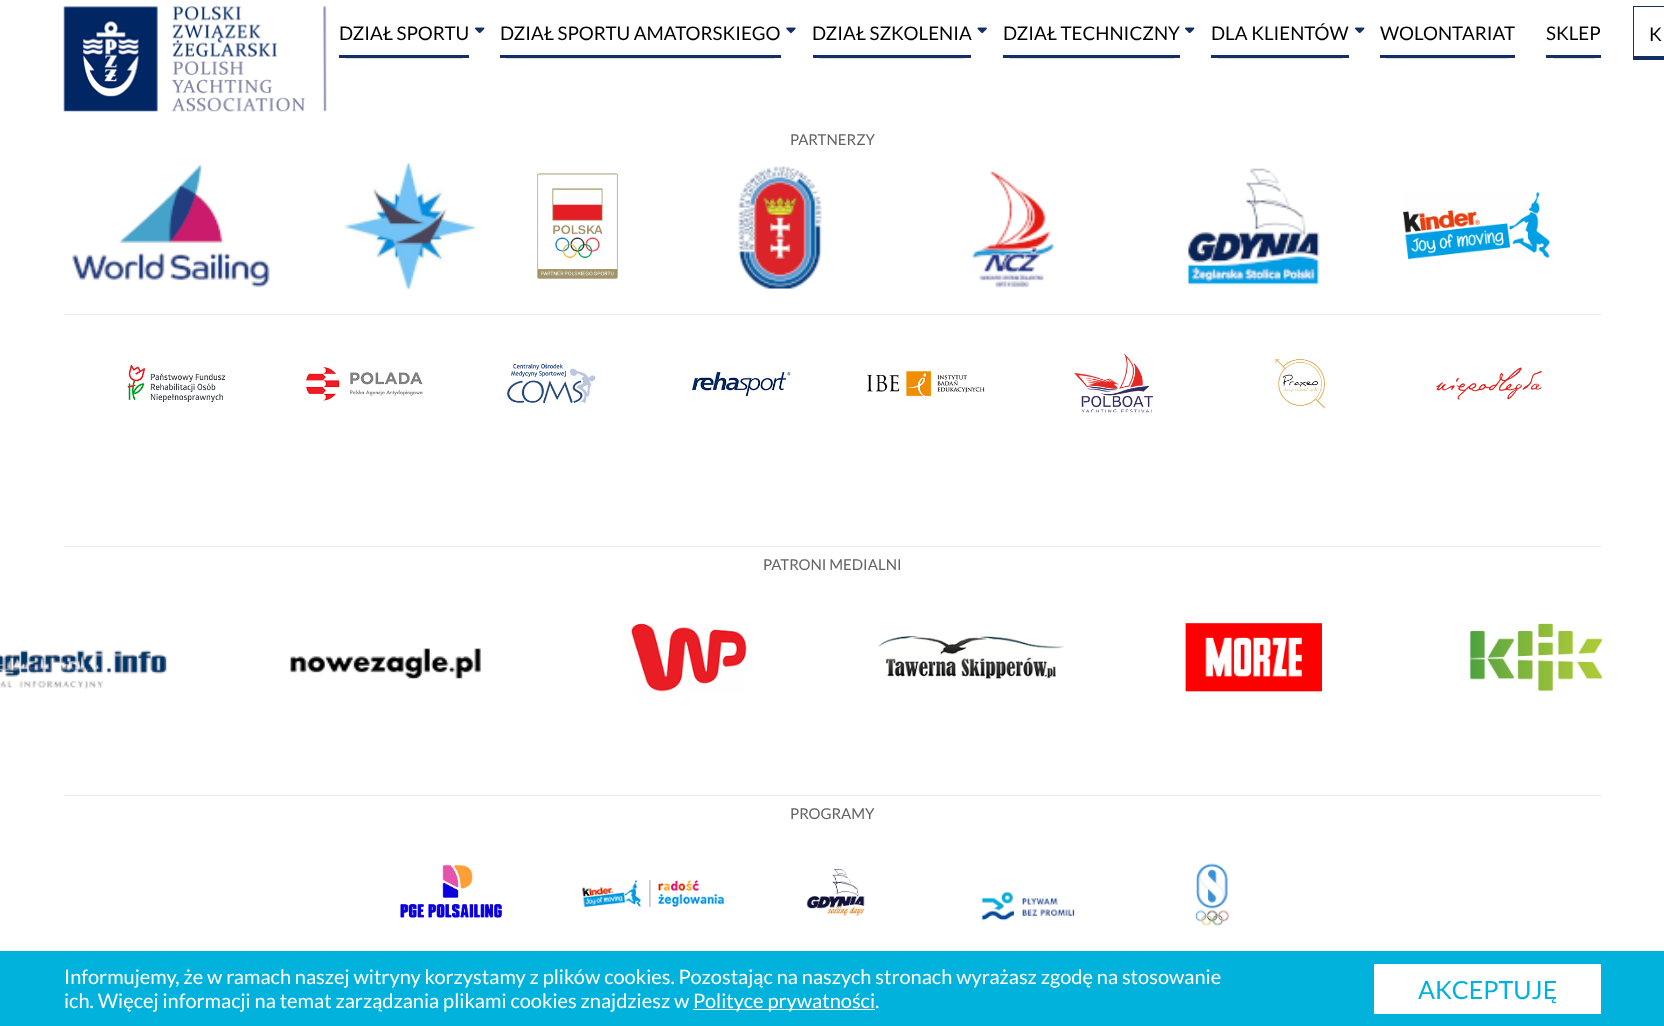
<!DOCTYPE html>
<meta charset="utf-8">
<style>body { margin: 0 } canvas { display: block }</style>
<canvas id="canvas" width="1664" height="1026"></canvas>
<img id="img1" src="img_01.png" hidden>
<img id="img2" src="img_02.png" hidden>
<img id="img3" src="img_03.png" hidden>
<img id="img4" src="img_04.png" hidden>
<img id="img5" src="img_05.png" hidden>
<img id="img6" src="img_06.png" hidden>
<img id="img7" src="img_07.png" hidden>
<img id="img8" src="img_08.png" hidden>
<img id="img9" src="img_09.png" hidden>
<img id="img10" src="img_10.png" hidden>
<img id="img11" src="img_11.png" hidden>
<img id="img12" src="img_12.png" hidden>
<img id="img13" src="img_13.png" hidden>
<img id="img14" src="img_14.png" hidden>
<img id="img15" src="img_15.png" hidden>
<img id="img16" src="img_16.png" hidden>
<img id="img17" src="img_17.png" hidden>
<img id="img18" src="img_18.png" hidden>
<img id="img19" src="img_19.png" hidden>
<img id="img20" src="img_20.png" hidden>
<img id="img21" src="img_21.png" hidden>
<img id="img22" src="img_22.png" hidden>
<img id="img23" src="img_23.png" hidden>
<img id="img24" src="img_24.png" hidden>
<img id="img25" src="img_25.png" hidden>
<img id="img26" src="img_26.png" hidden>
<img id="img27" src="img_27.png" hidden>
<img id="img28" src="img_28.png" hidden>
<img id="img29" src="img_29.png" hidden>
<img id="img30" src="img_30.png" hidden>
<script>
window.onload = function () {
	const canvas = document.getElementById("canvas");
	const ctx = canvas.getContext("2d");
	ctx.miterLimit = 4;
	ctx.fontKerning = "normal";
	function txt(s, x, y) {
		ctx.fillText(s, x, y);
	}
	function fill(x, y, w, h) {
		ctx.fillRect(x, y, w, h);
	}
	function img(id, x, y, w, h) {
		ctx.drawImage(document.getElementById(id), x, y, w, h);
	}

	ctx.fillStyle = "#FFFFFF";
	fill(0, 0, 1664, 1026);
	img("img1", 63, 6, 264, 106);
	img("img2", 475, 27, 10, 7);
	ctx.fillStyle = "#142F61";
	fill(339, 55, 130, 3);
	ctx.fillStyle = "#DCDCDC";
	fill(345, 58, 118, 1);
	img("img3", 786, 27, 10, 7);
	ctx.fillStyle = "#142F61";
	fill(500, 55, 281, 3);
	ctx.fillStyle = "#DCDCDC";
	fill(506, 58, 269, 1);
	img("img4", 977, 27, 10, 7);
	ctx.fillStyle = "#142F61";
	fill(813, 55, 158, 3);
	ctx.fillStyle = "#DCDCDC";
	fill(819, 58, 146, 1);
	img("img2", 1185, 27, 10, 7);
	ctx.fillStyle = "#142F61";
	fill(1003, 55, 177, 3);
	ctx.fillStyle = "#DCDCDC";
	fill(1009, 58, 165, 1);
	img("img2", 1355, 27, 10, 7);
	ctx.fillStyle = "#142F61";
	fill(1211, 55, 138, 3);
	ctx.fillStyle = "#DCDCDC";
	fill(1218, 58, 125, 1);
	ctx.fillStyle = "#142F61";
	fill(1380, 55, 135, 3);
	ctx.fillStyle = "#DCDCDC";
	fill(1386, 58, 123, 1);
	ctx.fillStyle = "#142F61";
	fill(1546, 55, 55, 3);
	ctx.fillStyle = "#DCDCDC";
	fill(1553, 58, 42, 1);
	ctx.strokeStyle = "#142F61";
	ctx.strokeRect(1633.5, 6.5, 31, 53);
	ctx.fillStyle = "#142F61";
	fill(1634, 56, 30, 3);
	img("img5", 72, 164, 198, 124);
	img("img6", 344, 163, 133, 126);
	img("img7", 537, 173, 81, 106);
	img("img8", 738, 166, 84, 123);
	img("img9", 972, 170, 82, 118);
	img("img10", 1187, 168, 133, 118);
	img("img11", 1403, 192, 147, 68);
	ctx.fillStyle = "#EBEBEB";
	fill(64, 314, 1537, 1);
	img("img12", 127, 365, 99, 38);
	img("img13", 306, 367, 117, 34);
	img("img14", 507, 361, 89, 43);
	img("img15", 692, 372, 99, 25);
	img("img16", 867, 371, 118, 25);
	img("img17", 1074, 353, 79, 60);
	img("img18", 1275, 359, 51, 50);
	img("img19", 1436, 367, 106, 33);
	fill(64, 546, 1537, 1);
	img("img20", 0, 650, 167, 39);
	img("img21", 290, 648, 191, 31);
	img("img22", 631, 623, 116, 69);
	img("img23", 878, 636, 186, 43);
	img("img24", 1185, 623, 137, 69);
	img("img25", 1469, 623, 134, 69);
	fill(64, 795, 1537, 1);
	img("img26", 400, 864, 102, 54);
	img("img27", 582, 880, 142, 27);
	img("img28", 806, 869, 59, 47);
	img("img29", 982, 891, 93, 30);
	img("img30", 1195, 863, 34, 63);
	ctx.fillStyle = "#00B2DC";
	fill(0, 951, 1664, 75);
	ctx.fillStyle = "#FFFFFF";
	fill(693, 1009, 182, 1);
	fill(1374, 964, 227, 50);
	ctx.font = "18.75px Lato";
	ctx.fillStyle = "#000000";
	txt("DZIAŁ SPORTU", 339, 40);
	txt("DZIAŁ SPORTU AMATORSKIEGO", 500, 40);
	txt("DZIAŁ SZKOLENIA", 812, 40);
	txt("DZIAŁ TECHNICZNY", 1003, 40);
	txt("DLA KLIENTÓW", 1211, 40);
	txt("WOLONTARIAT", 1380, 40);
	txt("SKLEP", 1546, 40);
	txt("K", 1649, 41);
	ctx.font = "15px Lato";
	ctx.fillStyle = "#636363";
	txt("PARTNERZY", 790, 145);
	txt("PATRONI MEDIALNI", 763, 570);
	txt("PROGRAMY", 790, 819);
	ctx.font = "20px Lato";
	ctx.fillStyle = "#FFFFFF";
	txt("Informujemy, że w ramach naszej witryny korzystamy z plików cookies. Pozostając na naszych stronach wyrażasz zgodę na stosowanie", 64, 984);
	txt("ich. Więcej informacji na temat zarządzania plikami cookies znajdziesz w", 64, 1008);
	txt("Polityce prywatności.", 693, 1008);
	ctx.font = "25px Lato";
	ctx.fillStyle = "#00B2DC";
	txt("AKCEPTUJĘ", 1418, 999);
};
</script>
